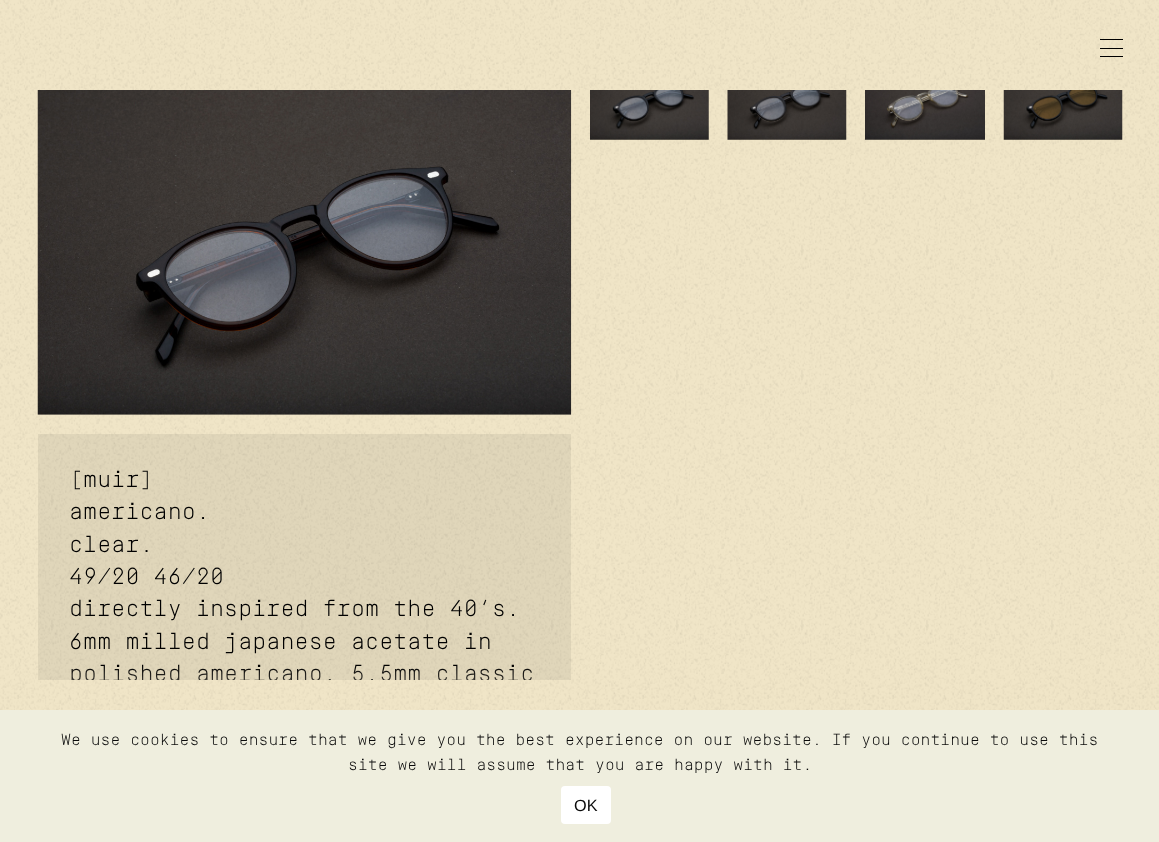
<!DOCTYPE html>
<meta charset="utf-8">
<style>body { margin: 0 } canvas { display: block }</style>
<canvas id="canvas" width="1159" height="842"></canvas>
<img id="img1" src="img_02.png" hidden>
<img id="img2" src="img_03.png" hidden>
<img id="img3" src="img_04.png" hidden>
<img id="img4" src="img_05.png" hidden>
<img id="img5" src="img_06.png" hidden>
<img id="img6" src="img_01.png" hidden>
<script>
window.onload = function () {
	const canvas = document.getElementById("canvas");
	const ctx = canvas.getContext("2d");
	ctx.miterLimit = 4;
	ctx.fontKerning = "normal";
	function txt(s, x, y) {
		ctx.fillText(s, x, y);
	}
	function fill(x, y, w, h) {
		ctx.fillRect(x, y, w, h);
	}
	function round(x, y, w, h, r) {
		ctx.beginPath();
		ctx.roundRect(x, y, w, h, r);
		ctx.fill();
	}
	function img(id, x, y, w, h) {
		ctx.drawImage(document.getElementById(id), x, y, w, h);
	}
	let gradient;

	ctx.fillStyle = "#F0E5C7";
	fill(0, 0, 1159, 842);
	ctx.fillStyle = "#000000";
	fill(1100, 39, 23, 1);
	fill(1100, 48, 23, 1);
	fill(1100, 56, 23, 1);
	ctx.fillStyle = "#E0D6BA";
	fill(38, 414, 533, 1);
	img("img1", 37, 90, 535, 325);
	img("img2", 590, 90, 119, 50);
	img("img3", 727, 90, 120, 50);
	img("img4", 865, 90, 120, 50);
	img("img5", 1003, 90, 120, 50);
	fill(38, 434, 533, 246);
	ctx.fillStyle = "#EFEEDE";
	fill(0, 710, 1159, 132);
	ctx.fillStyle = "#FFFFFF";
	round(561, 786, 50, 38, 4);
	ctx.font = "300 23.2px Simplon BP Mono";
	ctx.fillStyle = "#000000";
	txt("[muir]", 69, 487);
	txt("americano.", 69, 519);
	txt("clear.", 69, 552);
	txt("49/20 46/20", 69, 584);
	txt("directly inspired from the 40’s.", 69, 616);
	txt("6mm milled japanese acetate in", 69, 649);
	txt("polished americano. 5.5mm classic", 69, 681);
	gradient = ctx.createLinearGradient(304, 665, 304, 790);
	gradient.addColorStop(0, "rgba(224, 214, 186, 0)");
	gradient.addColorStop(0.5, "rgba(224, 214, 186, 0.95)");
	gradient.addColorStop(1, "#E0D6BA");
	ctx.fillStyle = gradient;
	fill(71, 666, 461, 14);
	ctx.fillStyle = "#F0E5C7";
	fill(71, 680, 460, 6);
	img("img6", 0, 0, 1159, 710);
	ctx.font = "300 16.25px Simplon BP Mono";
	ctx.fillStyle = "#0A0A0A";
	txt("We use cookies to ensure that we give you the best experience on our website. If you continue to use this", 61, 745);
	txt("site we will assume that you are happy with it.", 348, 770);
	ctx.font = "16.25px Liberation Sans";
	txt("OK", 574, 811);
};
</script>
